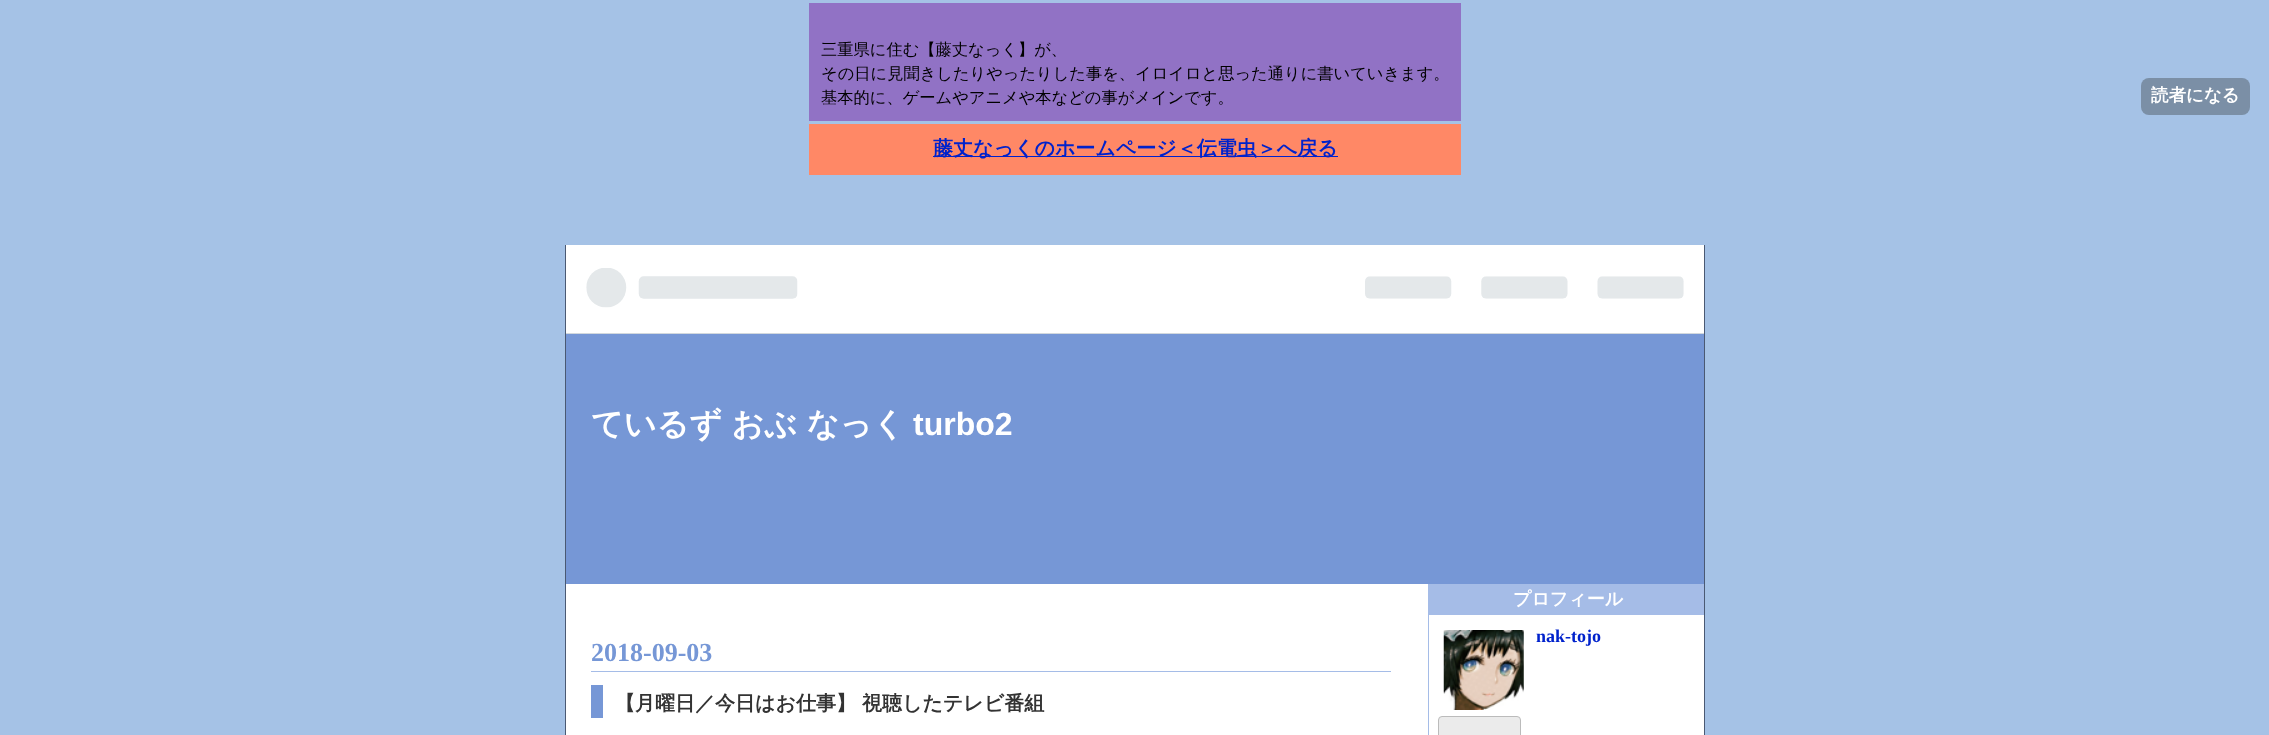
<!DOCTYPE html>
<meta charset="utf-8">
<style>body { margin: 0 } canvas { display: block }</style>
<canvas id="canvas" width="2269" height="735"></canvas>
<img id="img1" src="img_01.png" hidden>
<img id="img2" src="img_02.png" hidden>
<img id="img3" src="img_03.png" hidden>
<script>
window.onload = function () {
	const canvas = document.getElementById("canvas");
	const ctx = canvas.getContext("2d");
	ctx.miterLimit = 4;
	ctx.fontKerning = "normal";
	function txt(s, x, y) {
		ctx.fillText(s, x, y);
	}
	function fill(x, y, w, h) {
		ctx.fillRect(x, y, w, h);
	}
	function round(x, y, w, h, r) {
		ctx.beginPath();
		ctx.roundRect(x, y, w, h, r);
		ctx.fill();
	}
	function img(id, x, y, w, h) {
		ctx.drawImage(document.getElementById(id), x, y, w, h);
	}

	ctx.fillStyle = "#A5C2E6";
	fill(0, 0, 2269, 735);
	ctx.fillStyle = "#9172C5";
	fill(809, 3, 652, 118);
	ctx.fillStyle = "#FF8866";
	fill(809, 124, 652, 51);
	ctx.fillStyle = "#0022CC";
	fill(933, 156, 405, 1);
	ctx.fillStyle = "#7B8FA6";
	round(2141, 78, 109, 37, 8);
	ctx.fillStyle = "#FFFFFF";
	fill(566, 245, 1138, 88);
	ctx.fillStyle = "#D2D8DD";
	fill(566, 333, 1138, 1);
	img("img1", 586, 268, 212, 40);
	img("img2", 1365, 276, 319, 23);
	ctx.fillStyle = "#7697D6";
	fill(566, 334, 1138, 250);
	ctx.fillStyle = "#4A5973";
	fill(1704, 245, 1, 490);
	fill(565, 245, 1, 490);
	ctx.fillStyle = "#FFFFFF";
	fill(566, 584, 1138, 151);
	ctx.fillStyle = "#A5BCE7";
	fill(1428, 584, 1, 151);
	fill(1429, 584, 275, 31);
	img("img3", 1443, 630, 81, 80);
	ctx.fillStyle = "#EBEBEB";
	ctx.beginPath();
	ctx.roundRect(1438.5, 716.5, 82, 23, 3.5);
	ctx.fill();
	ctx.strokeStyle = "#BBBBBB";
	ctx.stroke();
	ctx.fillStyle = "#A5BCE7";
	fill(591, 671, 800, 1);
	ctx.fillStyle = "#7697D6";
	fill(591, 685, 12, 33);
	ctx.font = "500 16.25px WenQuanYi Zen Hei";
	ctx.fillStyle = "#000000";
	txt("三重県に住む【藤丈なっく】が、", 821, 55);
	txt("その日に見聞きしたりやったりした事を、イロイロと思った通りに書いていきます。", 821, 79);
	txt("基本的に、ゲームやアニメや本などの事がメインです。", 821, 103);
	ctx.font = "bold 20px WenQuanYi Zen Hei";
	ctx.fillStyle = "#0022CC";
	txt("藤丈なっくのホームページ＜伝電虫＞へ戻る", 933, 155);
	ctx.font = "bold 17.5px WenQuanYi Zen Hei";
	ctx.fillStyle = "#FFFFFF";
	txt("読者になる", 2151, 101);
	ctx.font = "bold 32px WenQuanYi Zen Hei";
	txt("ているず おぶ なっく", 591, 435);
	ctx.font = "bold 32px Liberation Sans";
	txt("turbo2", 913, 435);
	ctx.font = "bold 18px WenQuanYi Zen Hei";
	txt("プロフィール", 1513, 605);
	ctx.font = "bold 18px Liberation Serif";
	ctx.fillStyle = "#0022CC";
	txt("nak-tojo", 1536, 642);
	ctx.font = "bold 26px Liberation Serif";
	ctx.fillStyle = "#7697D6";
	txt("2018-09-03", 591, 661);
	ctx.font = "bold 20px WenQuanYi Zen Hei";
	ctx.fillStyle = "#333333";
	txt("【月曜日／今日はお仕事】 視聴したテレビ番組", 615, 710);
};
</script>
